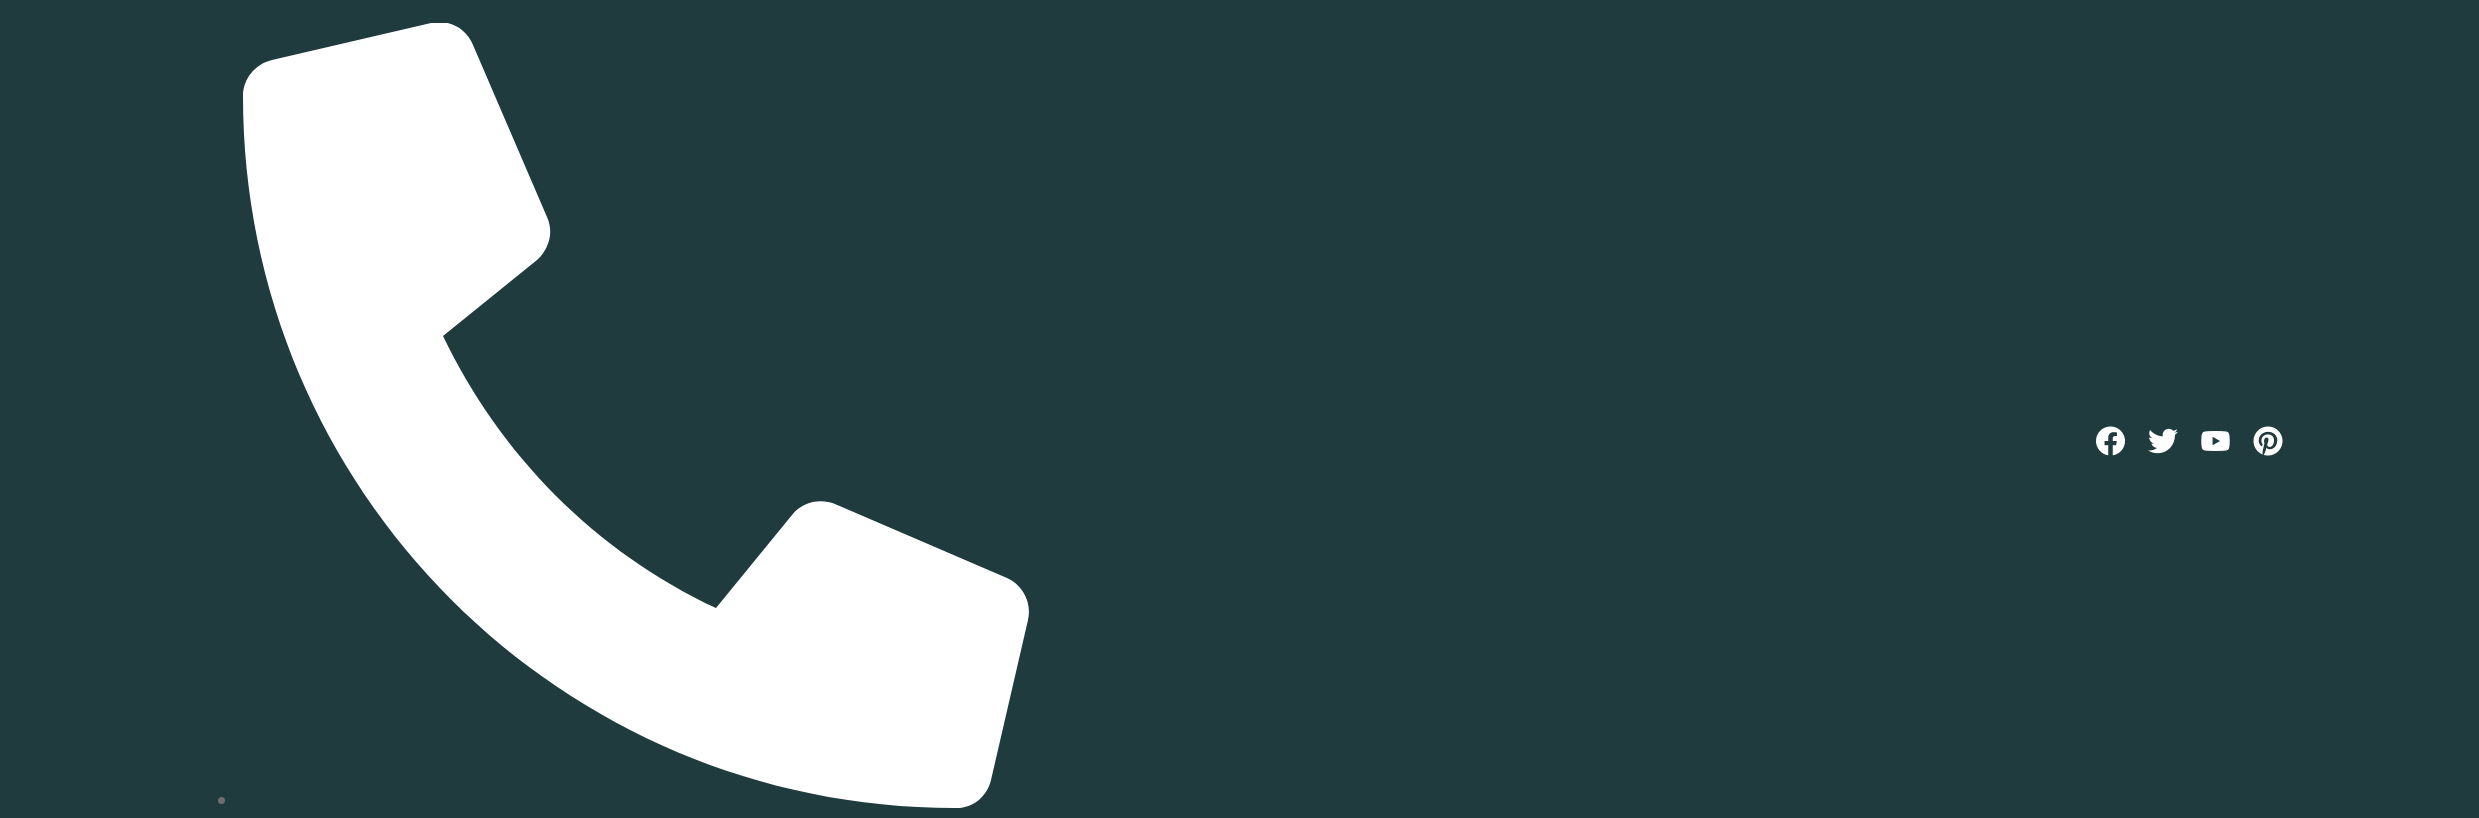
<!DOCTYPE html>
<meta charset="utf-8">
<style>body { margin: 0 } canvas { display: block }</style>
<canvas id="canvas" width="2479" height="818"></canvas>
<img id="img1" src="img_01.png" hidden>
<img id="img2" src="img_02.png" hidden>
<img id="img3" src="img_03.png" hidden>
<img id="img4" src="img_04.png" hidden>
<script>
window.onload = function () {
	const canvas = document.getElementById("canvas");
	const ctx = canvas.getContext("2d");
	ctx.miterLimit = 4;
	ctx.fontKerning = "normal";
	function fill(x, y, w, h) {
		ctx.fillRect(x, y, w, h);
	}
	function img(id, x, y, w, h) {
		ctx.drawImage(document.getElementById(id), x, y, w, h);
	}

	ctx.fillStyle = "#1F3B3E";
	fill(0, 0, 2479, 818);
	ctx.fillStyle = "#6E6E6E";
	ctx.beginPath();
	ctx.arc(221.5, 800.5, 3.5, 0, Math.PI * 2);
	ctx.fill();
	ctx.save();
	ctx.beginPath();
	ctx.rect(243, 23, 786, 786);
	ctx.clip();
	ctx.fillStyle = "#FFFFFF";
	ctx.beginPath();
	ctx.moveTo(1007, 578);
	ctx.lineTo(835, 504);
	ctx.bezierCurveTo(820, 498, 802, 502, 792, 515);
	ctx.lineTo(716, 608);
	ctx.bezierCurveTo(596, 552, 500, 455, 443, 336);
	ctx.lineTo(537, 260);
	ctx.bezierCurveTo(549, 249, 554, 232, 547, 217);
	ctx.lineTo(473, 45);
	ctx.bezierCurveTo(466, 28, 449, 19, 431, 23);
	ctx.lineTo(272, 60);
	ctx.bezierCurveTo(255, 64, 243, 79, 243, 96);
	ctx.bezierCurveTo(243, 490, 562, 808, 955, 808);
	ctx.bezierCurveTo(972, 809, 987, 797, 991, 780);
	ctx.lineTo(1028, 620);
	ctx.bezierCurveTo(1032, 603, 1023, 585, 1007, 578);
	ctx.closePath();
	ctx.fill();
	ctx.restore();
	img("img1", 2096, 426, 29, 30);
	img("img2", 2148, 428, 30, 26);
	img("img3", 2201, 431, 29, 20);
	img("img4", 2253, 426, 30, 30);
};
</script>
